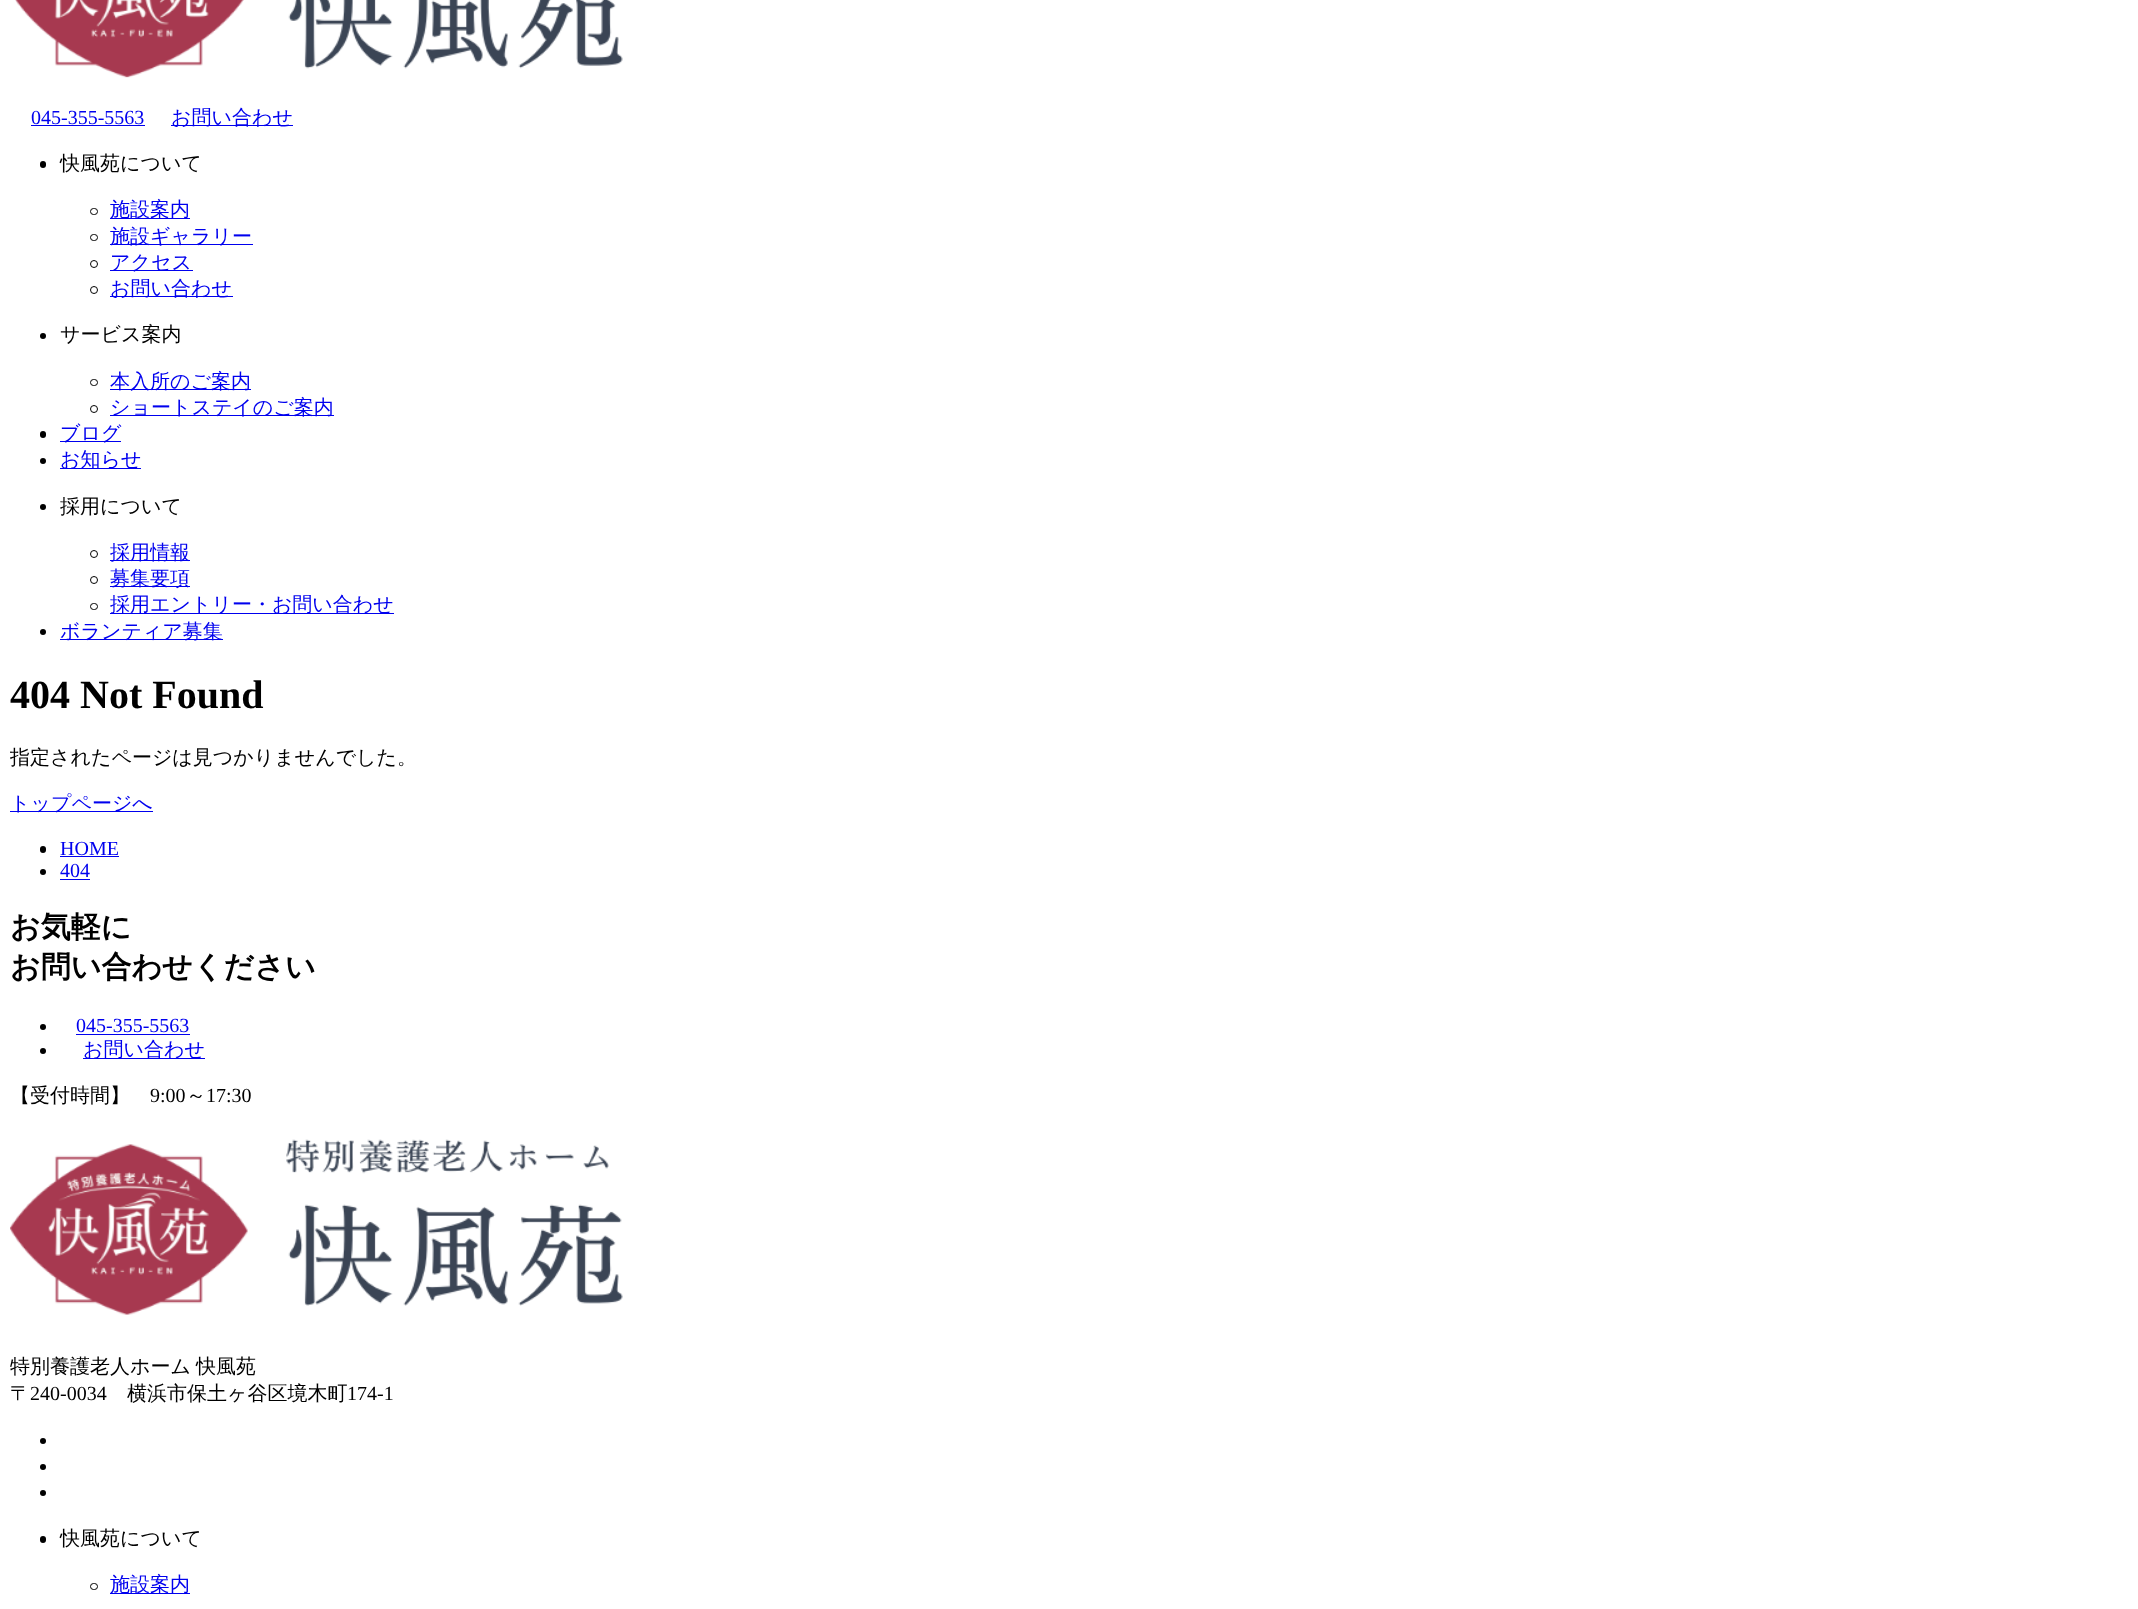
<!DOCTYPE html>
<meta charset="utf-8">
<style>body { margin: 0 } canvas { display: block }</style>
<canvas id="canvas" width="2138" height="1609"></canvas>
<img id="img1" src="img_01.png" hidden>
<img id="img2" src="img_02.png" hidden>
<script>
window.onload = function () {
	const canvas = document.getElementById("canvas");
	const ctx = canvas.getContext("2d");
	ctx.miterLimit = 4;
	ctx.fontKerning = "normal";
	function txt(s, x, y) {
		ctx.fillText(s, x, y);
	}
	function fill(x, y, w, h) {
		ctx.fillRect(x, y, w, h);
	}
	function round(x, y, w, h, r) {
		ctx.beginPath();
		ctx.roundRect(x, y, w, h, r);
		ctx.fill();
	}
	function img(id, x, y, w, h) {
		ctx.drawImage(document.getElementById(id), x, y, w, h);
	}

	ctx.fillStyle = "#FFFFFF";
	fill(0, 0, 2138, 1609);
	img("img1", 15, 0, 608, 78);
	ctx.fillStyle = "#0000EE";
	fill(31, 125, 114, 1);
	fill(171, 125, 122, 1);
	ctx.fillStyle = "#000000";
	round(40, 161, 6, 7, 3);
	ctx.beginPath();
	ctx.roundRect(90.5, 208.5, 7, 6, 3);
	ctx.strokeStyle = "#000000";
	ctx.stroke();
	ctx.fillStyle = "#0000EE";
	fill(110, 218, 80, 1);
	ctx.beginPath();
	ctx.roundRect(90.5, 234.5, 7, 6, 3);
	ctx.stroke();
	fill(110, 244, 143, 1);
	ctx.beginPath();
	ctx.arc(94, 264, 3.5, 0, Math.PI * 2);
	ctx.stroke();
	fill(110, 270, 83, 1);
	ctx.beginPath();
	ctx.arc(94, 290, 3.5, 0, Math.PI * 2);
	ctx.stroke();
	fill(110, 296, 123, 1);
	ctx.fillStyle = "#000000";
	ctx.beginPath();
	ctx.arc(43, 336, 3, 0, Math.PI * 2);
	ctx.fill();
	ctx.beginPath();
	ctx.roundRect(90.5, 379.5, 7, 6, 3);
	ctx.stroke();
	ctx.fillStyle = "#0000EE";
	fill(110, 389, 141, 1);
	ctx.beginPath();
	ctx.arc(94, 409, 3.5, 0, Math.PI * 2);
	ctx.stroke();
	fill(110, 415, 224, 1);
	ctx.fillStyle = "#000000";
	round(40, 431, 6, 7, 3);
	ctx.fillStyle = "#0000EE";
	fill(60, 441, 61, 1);
	ctx.fillStyle = "#000000";
	ctx.beginPath();
	ctx.arc(43, 461, 3, 0, Math.PI * 2);
	ctx.fill();
	ctx.fillStyle = "#0000EE";
	fill(60, 468, 81, 1);
	ctx.fillStyle = "#000000";
	ctx.beginPath();
	ctx.arc(43, 507, 3, 0, Math.PI * 2);
	ctx.fill();
	ctx.beginPath();
	ctx.arc(94, 554, 3.5, 0, Math.PI * 2);
	ctx.stroke();
	ctx.fillStyle = "#0000EE";
	fill(110, 560, 80, 1);
	ctx.beginPath();
	ctx.arc(94, 580, 3.5, 0, Math.PI * 2);
	ctx.stroke();
	fill(110, 586, 80, 1);
	ctx.beginPath();
	ctx.roundRect(90.5, 603.5, 7, 6, 3);
	ctx.stroke();
	fill(110, 613, 284, 1);
	ctx.fillStyle = "#000000";
	ctx.beginPath();
	ctx.arc(43, 632, 3, 0, Math.PI * 2);
	ctx.fill();
	ctx.fillStyle = "#0000EE";
	fill(60, 639, 163, 1);
	fill(10, 811, 143, 1);
	ctx.fillStyle = "#000000";
	round(40, 846, 6, 7, 3);
	ctx.fillStyle = "#0000EE";
	fill(60, 856, 59, 1);
	ctx.fillStyle = "#000000";
	ctx.beginPath();
	ctx.arc(43, 872, 3, 0, Math.PI * 2);
	ctx.fill();
	ctx.fillStyle = "#0000EE";
	fill(60, 879, 30, 1);
	ctx.fillStyle = "#000000";
	ctx.beginPath();
	ctx.arc(43, 1027, 3, 0, Math.PI * 2);
	ctx.fill();
	ctx.fillStyle = "#0000EE";
	fill(76, 1034, 114, 1);
	ctx.fillStyle = "#000000";
	ctx.beginPath();
	ctx.arc(43, 1051, 3, 0, Math.PI * 2);
	ctx.fill();
	ctx.fillStyle = "#0000EE";
	fill(83, 1058, 122, 1);
	img("img2", 10, 1139, 613, 176);
	ctx.fillStyle = "#000000";
	ctx.beginPath();
	ctx.arc(43, 1441, 3, 0, Math.PI * 2);
	ctx.fill();
	ctx.beginPath();
	ctx.arc(43, 1467, 3, 0, Math.PI * 2);
	ctx.fill();
	ctx.beginPath();
	ctx.arc(43, 1493, 3, 0, Math.PI * 2);
	ctx.fill();
	round(40, 1536, 6, 7, 3);
	ctx.beginPath();
	ctx.roundRect(90.5, 1583.5, 7, 6, 3);
	ctx.stroke();
	ctx.fillStyle = "#0000EE";
	fill(110, 1593, 80, 1);
	ctx.font = "20px Liberation Serif";
	txt("045-355-5563", 31, 124);
	ctx.font = "500 20px WenQuanYi Zen Hei";
	txt("お問い合わせ", 171, 124);
	ctx.fillStyle = "#000000";
	txt("快風苑について", 60, 170);
	ctx.fillStyle = "#0000EE";
	txt("施設案内", 110, 216);
	txt("施設ギャラリー", 110, 243);
	txt("アクセス", 110, 269);
	txt("お問い合わせ", 110, 295);
	ctx.fillStyle = "#000000";
	txt("サービス案内", 60, 341);
	ctx.fillStyle = "#0000EE";
	txt("本入所のご案内", 110, 388);
	txt("ショートステイのご案内", 110, 414);
	txt("ブログ", 60, 440);
	txt("お知らせ", 60, 466);
	ctx.fillStyle = "#000000";
	txt("採用について", 60, 513);
	ctx.fillStyle = "#0000EE";
	txt("採用情報", 110, 559);
	txt("募集要項", 110, 585);
	txt("採用エントリー・お問い合わせ", 110, 611);
	txt("ボランティア募集", 60, 638);
	ctx.font = "bold 40px Liberation Serif";
	ctx.fillStyle = "#000000";
	txt("404 Not Found", 10, 708);
	ctx.font = "500 20px WenQuanYi Zen Hei";
	txt("指定されたページは見つかりませんでした。", 10, 764);
	ctx.fillStyle = "#0000EE";
	txt("トップページへ", 10, 810);
	ctx.font = "20px Liberation Serif";
	txt("HOME", 60, 855);
	txt("404", 60, 877);
	ctx.font = "bold 30px WenQuanYi Zen Hei";
	ctx.fillStyle = "#000000";
	txt("お気軽に", 10, 937);
	txt("お問い合わせください", 10, 977);
	ctx.font = "20px Liberation Serif";
	ctx.fillStyle = "#0000EE";
	txt("045-355-5563", 76, 1032);
	ctx.font = "500 20px WenQuanYi Zen Hei";
	txt("お問い合わせ", 83, 1056);
	ctx.fillStyle = "#000000";
	txt("【受付時間】", 10, 1102);
	ctx.font = "20px Liberation Serif";
	txt("9:00", 150, 1102);
	ctx.font = "500 20px WenQuanYi Zen Hei";
	txt("～", 186, 1102);
	ctx.font = "20px Liberation Serif";
	txt("17:30", 206, 1102);
	ctx.wordSpacing = "-1px";
	ctx.font = "500 20px WenQuanYi Zen Hei";
	txt("特別養護老人ホーム 快風苑", 10, 1373);
	ctx.wordSpacing = "0px";
	txt("〒", 10, 1400);
	ctx.font = "20px Liberation Serif";
	txt("240-0034", 30, 1400);
	ctx.font = "500 20px WenQuanYi Zen Hei";
	txt("横浜市保土ヶ谷区境木町", 127, 1400);
	ctx.font = "20px Liberation Serif";
	txt("174-1", 347, 1400);
	ctx.font = "500 20px WenQuanYi Zen Hei";
	txt("快風苑について", 60, 1545);
	ctx.fillStyle = "#0000EE";
	txt("施設案内", 110, 1591);
};
</script>
